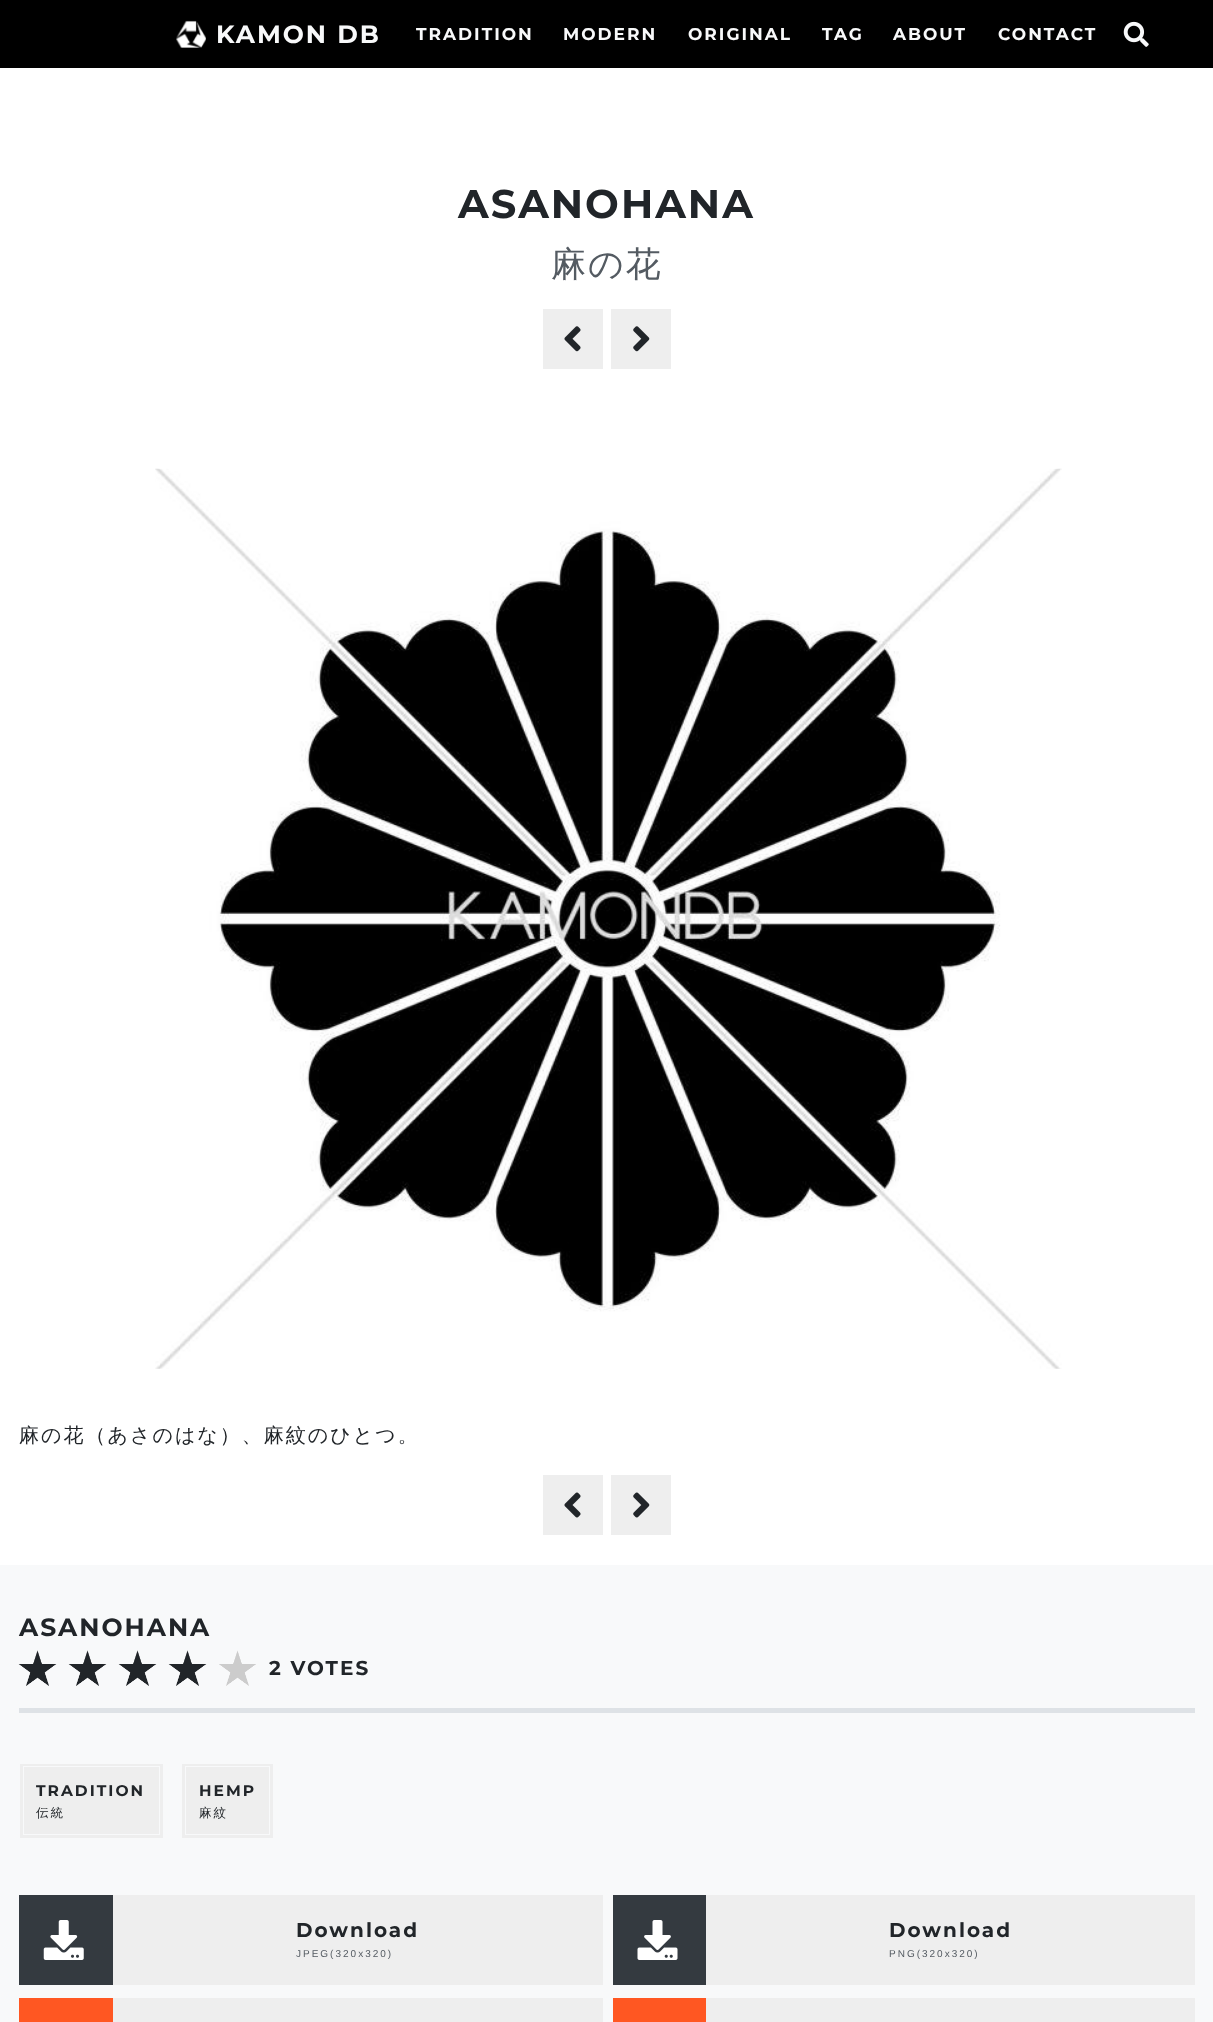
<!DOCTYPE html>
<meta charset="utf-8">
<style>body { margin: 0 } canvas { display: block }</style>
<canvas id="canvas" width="1213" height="2022"></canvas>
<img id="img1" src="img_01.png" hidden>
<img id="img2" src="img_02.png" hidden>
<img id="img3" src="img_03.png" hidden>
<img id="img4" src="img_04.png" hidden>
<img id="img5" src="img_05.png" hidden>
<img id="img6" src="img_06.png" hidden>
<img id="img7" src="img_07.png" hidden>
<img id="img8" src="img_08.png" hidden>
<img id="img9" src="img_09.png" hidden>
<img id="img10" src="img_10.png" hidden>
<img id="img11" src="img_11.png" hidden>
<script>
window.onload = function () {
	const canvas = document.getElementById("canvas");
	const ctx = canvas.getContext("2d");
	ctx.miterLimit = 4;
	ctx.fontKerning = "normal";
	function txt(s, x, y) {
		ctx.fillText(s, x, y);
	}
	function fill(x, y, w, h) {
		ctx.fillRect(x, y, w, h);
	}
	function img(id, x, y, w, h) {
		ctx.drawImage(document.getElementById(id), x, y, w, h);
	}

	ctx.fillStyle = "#FFFFFF";
	fill(0, 0, 1213, 2022);
	ctx.fillStyle = "#000000";
	fill(0, 0, 1213, 68);
	img("img1", 176, 20, 30, 28);
	img("img2", 1123, 21, 26, 26);
	ctx.fillStyle = "#EEEEEE";
	fill(543, 309, 60, 60);
	img("img3", 564, 326, 17, 26);
	fill(611, 309, 60, 60);
	img("img4", 633, 326, 17, 26);
	img("img5", 155, 468, 907, 901);
	fill(543, 1475, 60, 60);
	img("img6", 564, 1492, 17, 26);
	fill(611, 1475, 60, 60);
	img("img7", 633, 1492, 17, 26);
	ctx.fillStyle = "#F8F9FA";
	fill(0, 1565, 1213, 457);
	ctx.fillStyle = "#DEE2E6";
	fill(19, 1708, 1176, 5);
	img("img8", 18, 1650, 39, 36);
	img("img8", 68, 1650, 39, 36);
	img("img8", 118, 1650, 39, 36);
	img("img8", 168, 1650, 39, 36);
	img("img9", 219, 1650, 37, 36);
	ctx.fillStyle = "#EEEEEE";
	fill(20, 1764, 143, 74);
	ctx.strokeStyle = "#F8F9FA";
	ctx.strokeRect(23.5, 1766.5, 136, 68);
	fill(182, 1764, 91, 74);
	ctx.strokeRect(185.5, 1766.5, 84, 68);
	fill(113, 1895, 490, 90);
	ctx.fillStyle = "#343A40";
	fill(19, 1895, 94, 90);
	img("img10", 43, 1920, 41, 40);
	ctx.fillStyle = "#EEEEEE";
	fill(706, 1895, 489, 90);
	ctx.fillStyle = "#343A40";
	fill(613, 1895, 93, 90);
	img("img11", 637, 1920, 41, 40);
	ctx.fillStyle = "#EEEEEE";
	fill(113, 1998, 490, 24);
	ctx.fillStyle = "#FF5722";
	fill(19, 1998, 94, 24);
	ctx.fillStyle = "#EEEEEE";
	fill(706, 1998, 489, 24);
	ctx.fillStyle = "#FF5722";
	fill(613, 1998, 93, 24);
	ctx.letterSpacing = "2px";
	ctx.font = "100 25px Montserrat";
	ctx.fillStyle = "#F8F9FA";
	txt("KAMON DB", 216, 43);
	ctx.font = "100 17px Montserrat";
	txt("TRADITION", 416, 40);
	txt("MODERN", 563, 40);
	txt("ORIGINAL", 688, 40);
	txt("TAG", 822, 40);
	txt("ABOUT", 893, 40);
	txt("CONTACT", 998, 40);
	ctx.font = "100 40px Montserrat";
	ctx.fillStyle = "#212529";
	txt("ASANOHANA", 458, 218);
	ctx.font = "500 35px WenQuanYi Zen Hei";
	ctx.fillStyle = "#545B62";
	txt("麻の花", 551, 276);
	ctx.font = "500 20px WenQuanYi Zen Hei";
	ctx.fillStyle = "#212529";
	txt("麻の花（あさのはな）、麻紋のひとつ。", 19, 1442);
	ctx.font = "100 25px Montserrat";
	txt("ASANOHANA", 19, 1636);
	ctx.font = "100 20px Montserrat";
	txt("2 VOTES", 269, 1675);
	ctx.font = "100 15.5px Montserrat";
	txt("TRADITION", 36, 1796);
	ctx.font = "500 12.5px WenQuanYi Zen Hei";
	txt("伝統", 36, 1817);
	ctx.font = "100 15.5px Montserrat";
	txt("HEMP", 199, 1796);
	ctx.font = "500 12.5px WenQuanYi Zen Hei";
	txt("麻紋", 199, 1817);
	ctx.font = "100 20px Montserrat";
	txt("Download", 296, 1937);
	ctx.font = "10px Liberation Sans";
	ctx.fillStyle = "#545B62";
	txt("JPEG(320x320)", 296, 1957);
	ctx.font = "100 20px Montserrat";
	ctx.fillStyle = "#212529";
	txt("Download", 889, 1937);
	ctx.font = "10px Liberation Sans";
	ctx.fillStyle = "#545B62";
	txt("PNG(320x320)", 889, 1957);
};
</script>
